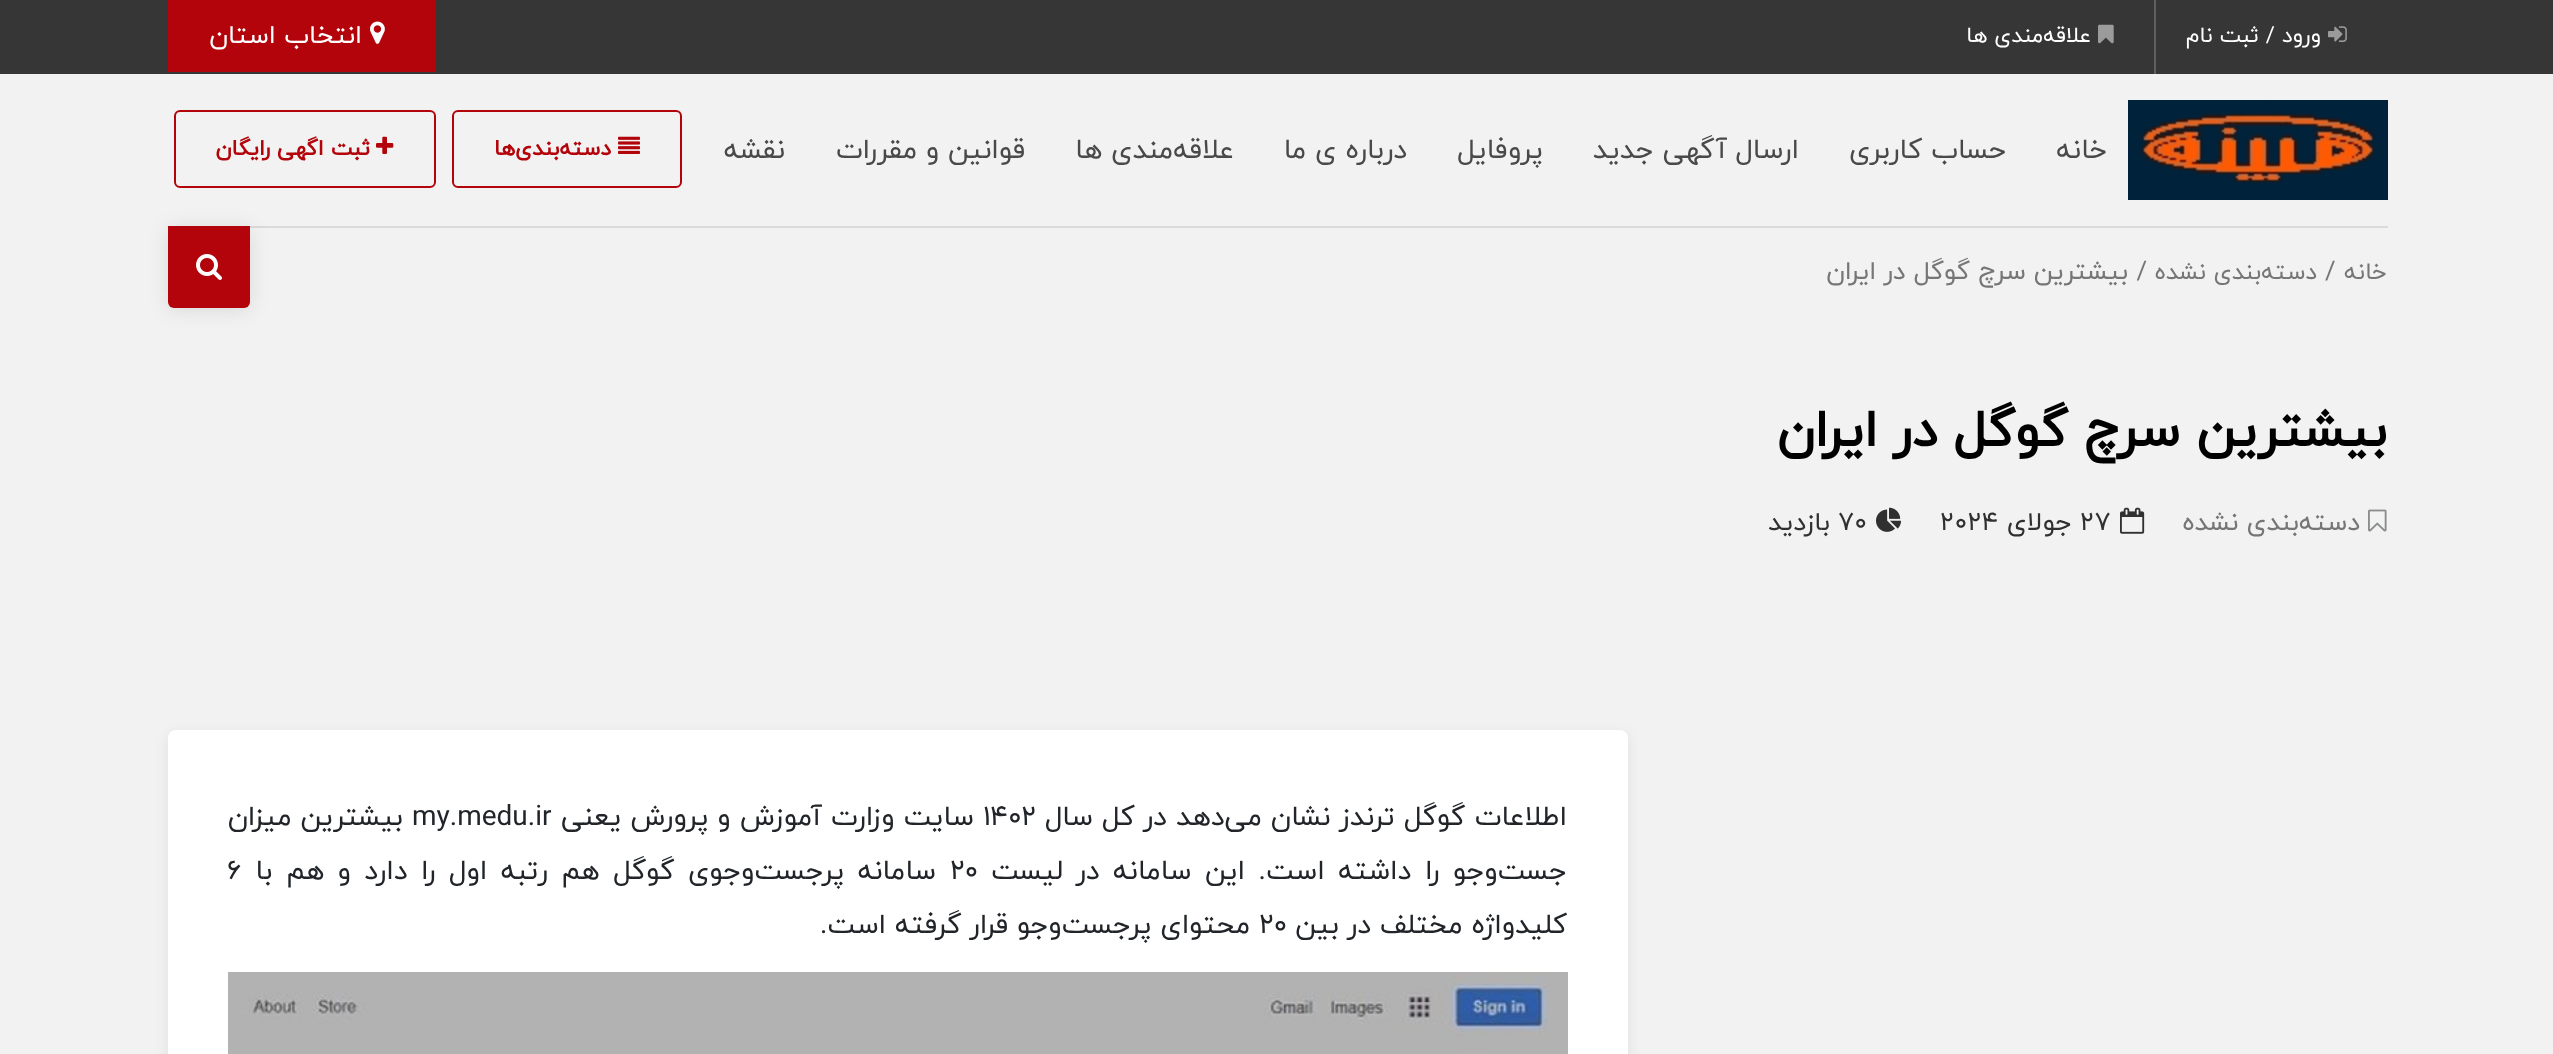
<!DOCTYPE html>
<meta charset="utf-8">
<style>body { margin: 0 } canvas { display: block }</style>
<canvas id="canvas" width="2553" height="1054"></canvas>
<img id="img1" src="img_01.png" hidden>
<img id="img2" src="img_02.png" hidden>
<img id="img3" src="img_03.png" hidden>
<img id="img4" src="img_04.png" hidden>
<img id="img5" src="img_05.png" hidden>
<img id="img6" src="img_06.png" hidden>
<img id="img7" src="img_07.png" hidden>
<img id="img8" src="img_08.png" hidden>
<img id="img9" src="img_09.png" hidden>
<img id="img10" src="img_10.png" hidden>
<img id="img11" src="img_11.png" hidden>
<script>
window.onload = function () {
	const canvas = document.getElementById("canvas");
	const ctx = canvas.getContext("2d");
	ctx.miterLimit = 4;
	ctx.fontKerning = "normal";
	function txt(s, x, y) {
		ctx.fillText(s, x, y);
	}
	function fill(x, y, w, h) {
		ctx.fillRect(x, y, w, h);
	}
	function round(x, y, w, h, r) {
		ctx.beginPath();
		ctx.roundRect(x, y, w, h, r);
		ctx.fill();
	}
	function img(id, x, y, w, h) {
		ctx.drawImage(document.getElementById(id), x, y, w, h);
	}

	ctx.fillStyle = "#F2F2F2";
	fill(0, 0, 2553, 1054);
	ctx.fillStyle = "#363636";
	fill(0, 0, 2553, 74);
	ctx.fillStyle = "#5E5E5E";
	fill(2154, 0, 2, 74);
	img("img1", 2328, 26, 19, 16);
	img("img2", 2098, 24, 16, 20);
	ctx.fillStyle = "#B3040B";
	fill(168, 0, 268, 72);
	img("img3", 370, 21, 15, 23);
	ctx.fillStyle = "#DADADA";
	fill(250, 226, 2138, 2);
	img("img4", 2128, 100, 260, 100);
	ctx.beginPath();
	ctx.roundRect(453, 111, 228, 76, 5);
	ctx.strokeStyle = "#B3040B";
	ctx.lineWidth = 2;
	ctx.stroke();
	img("img5", 618, 136, 22, 18);
	ctx.beginPath();
	ctx.roundRect(175, 111, 260, 76, 5);
	ctx.stroke();
	img("img6", 376, 136, 18, 18);
	ctx.fillStyle = "rgba(0, 0, 0, 0.1)";
	ctx.filter = "blur(10px)";
	ctx.beginPath();
	ctx.roundRect(168, 228, 82, 82, 6);
	ctx.fill();
	ctx.filter = "none";
	ctx.fillStyle = "#B3040B";
	ctx.beginPath();
	ctx.roundRect(168, 226, 82, 82, [0, 0, 6, 6]);
	ctx.fill();
	img("img7", 196, 254, 26, 26);
	img("img8", 2368, 509, 19, 23);
	img("img9", 2120, 507, 25, 27);
	img("img10", 1876, 507, 25, 25);
	ctx.fillStyle = "rgba(0, 0, 0, 0.08)";
	ctx.filter = "blur(7px)";
	ctx.beginPath();
	ctx.roundRect(168, 734, 1460, 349, 8);
	ctx.fill();
	ctx.filter = "none";
	ctx.fillStyle = "#FFFFFF";
	round(168, 730, 1460, 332, 8);
	img("img11", 228, 972, 1340, 82);
	ctx.direction = "rtl";
	ctx.font = "22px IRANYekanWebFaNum";
	txt("ورود / ثبت نام", 2321, 42);
	txt("علاقه‌مندی ها", 2091, 42);
	ctx.font = "26px IRANYekanWebFaNum";
	txt("انتخاب استان", 362, 43);
	ctx.font = "28px IRANYekanWebFaNum";
	ctx.fillStyle = "#494949";
	txt("خانه", 2107, 158);
	txt("حساب کاربری", 2006, 158);
	txt("ارسال آگهی جدید", 1799, 158);
	txt("پروفایل", 1543, 158);
	txt("درباره ی ما", 1407, 158);
	txt("علاقه‌مندی ها", 1234, 158);
	txt("قوانین و مقررات", 1025, 158);
	txt("نقشه", 785, 158);
	ctx.font = "bold 22px IRANYekanWebFaNum";
	ctx.fillStyle = "#B3040B";
	txt("دسته‌بندی‌ها", 611, 155);
	txt("ثبت اگهی رایگان", 370, 155);
	ctx.font = "23.75px IRANYekanWebFaNum";
	ctx.fillStyle = "#767676";
	txt("خانه", 2387, 279);
	ctx.direction = "ltr";
	ctx.font = "25.75px IRANYekanWebFaNum";
	txt("/", 2325, 279);
	ctx.direction = "rtl";
	ctx.font = "23.75px IRANYekanWebFaNum";
	txt("دسته‌بندی نشده", 2317, 279);
	ctx.font = "25.75px IRANYekanWebFaNum";
	txt("/ بیشترین سرچ گوگل در ایران", 2147, 279);
	ctx.font = "bold 52px IRANYekanWebFaNum";
	ctx.fillStyle = "#000000";
	txt("بیشترین سرچ گوگل در ایران", 2387, 446);
	ctx.font = "26px IRANYekanWebFaNum";
	ctx.fillStyle = "#767676";
	txt("دسته‌بندی نشده", 2360, 530);
	ctx.direction = "ltr";
	ctx.fillStyle = "#303030";
	txt("27", 2080, 530);
	ctx.direction = "rtl";
	txt("جولای", 2072, 530);
	ctx.direction = "ltr";
	txt("2024", 1940, 530);
	txt("70", 1838, 530);
	ctx.direction = "rtl";
	txt("بازدید", 1830, 530);
	ctx.wordSpacing = "0.25px";
	ctx.font = "28px IRANYekanWebFaNum";
	ctx.fillStyle = "#212529";
	txt("اطلاعات گوگل ترندز نشان می‌دهد در کل سال", 1567, 825);
	ctx.wordSpacing = "0px";
	ctx.direction = "ltr";
	txt("۱۴۰۲", 983, 825);
	ctx.wordSpacing = "0.25px";
	ctx.direction = "rtl";
	txt("سایت وزارت آموزش و پرورش یعنی", 974, 825);
	ctx.wordSpacing = "0px";
	ctx.direction = "ltr";
	txt("my.medu.ir", 412, 825);
	ctx.direction = "rtl";
	txt("بیشترین میزان", 403, 825);
	ctx.wordSpacing = "4.75px";
	txt("جست‌وجو را داشته است. این سامانه در لیست", 1567, 879);
	ctx.wordSpacing = "0px";
	ctx.direction = "ltr";
	txt("۲۰", 950, 879);
	ctx.wordSpacing = "4.75px";
	ctx.direction = "rtl";
	txt("سامانه پرجست‌وجوی گوگل هم رتبه اول را دارد و هم با", 936, 879);
	ctx.wordSpacing = "0px";
	ctx.direction = "ltr";
	txt("۶", 227, 879);
	ctx.direction = "rtl";
	txt("کلیدواژه مختلف در بین", 1567, 933);
	ctx.direction = "ltr";
	txt("۲۰", 1259, 933);
	ctx.direction = "rtl";
	txt("محتوای پرجست‌وجو قرار گرفته است.", 1250, 933);
};
</script>
